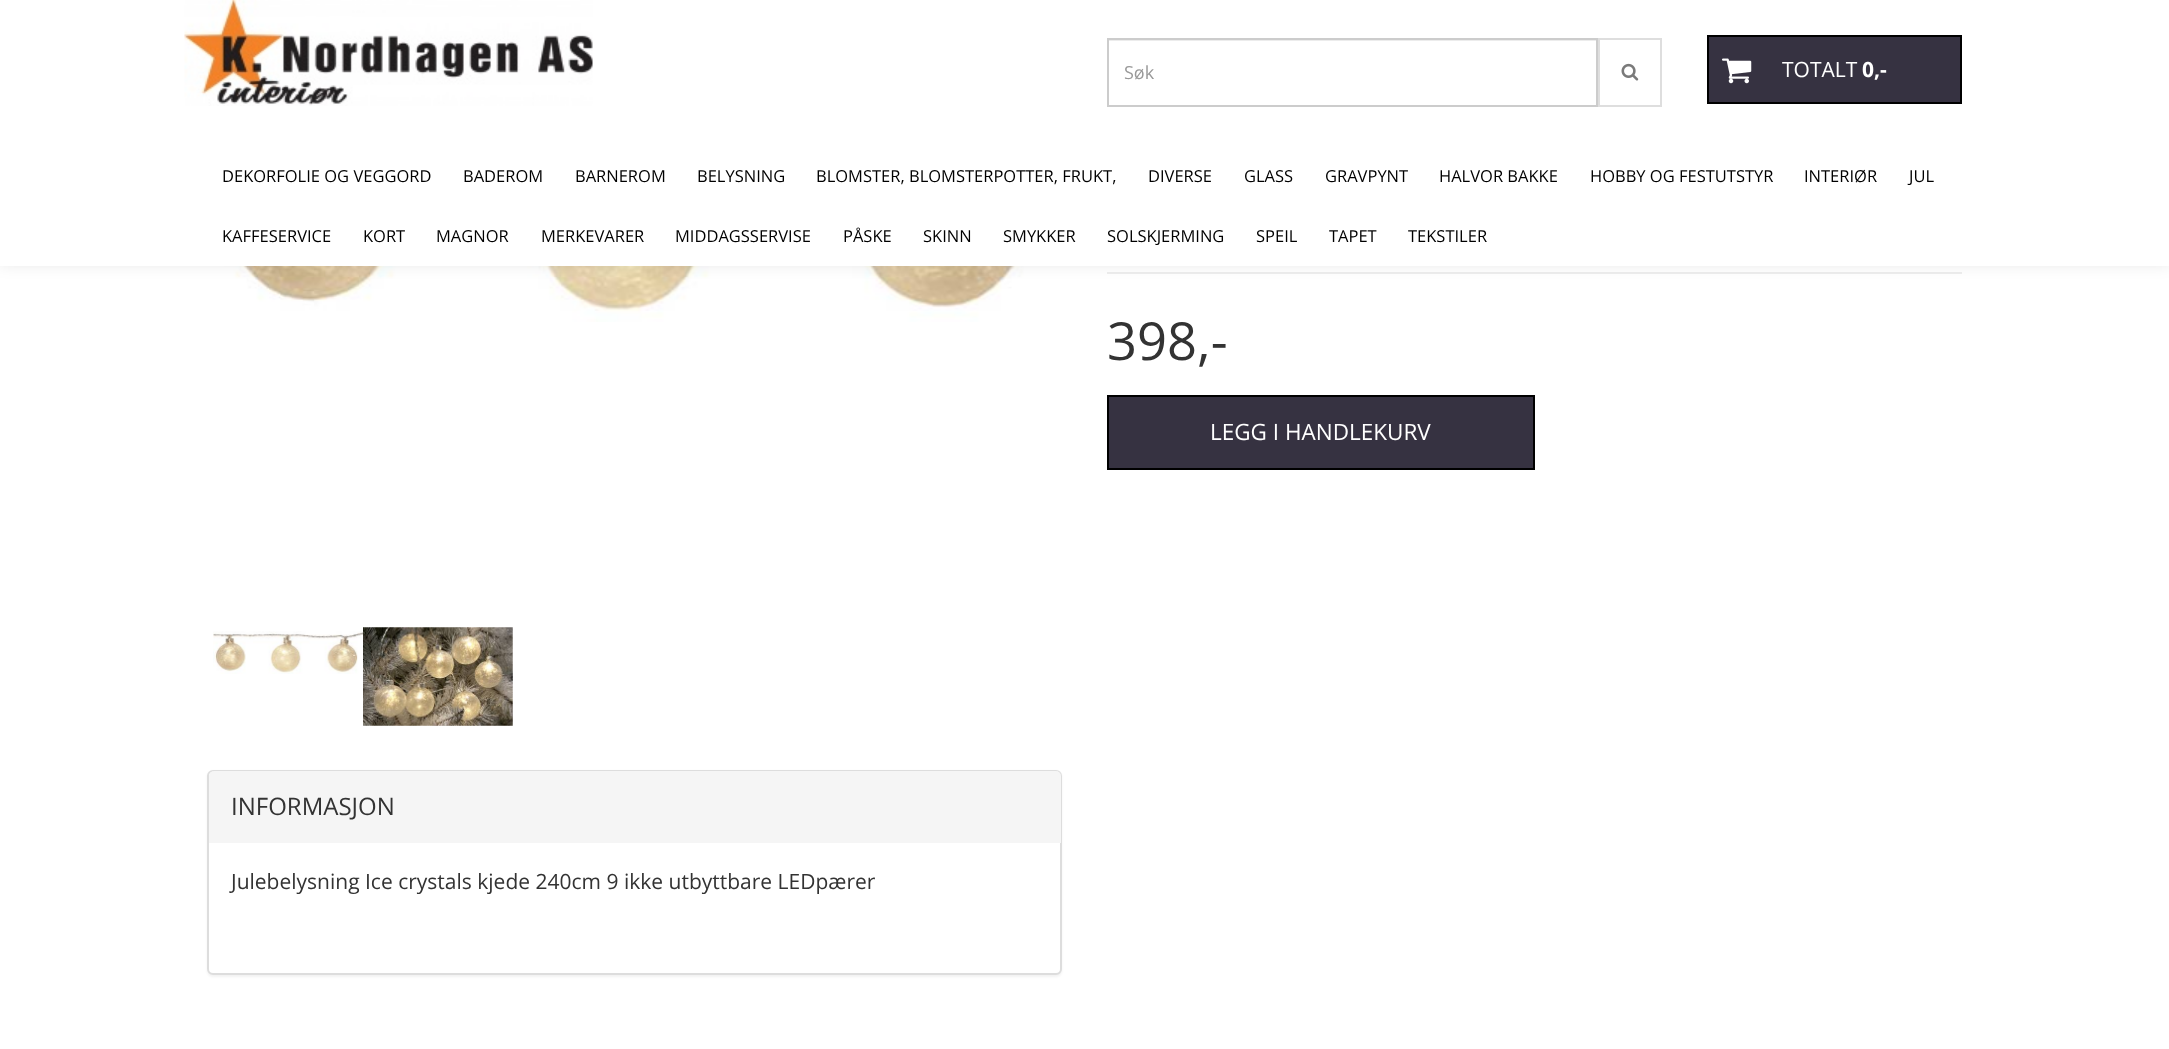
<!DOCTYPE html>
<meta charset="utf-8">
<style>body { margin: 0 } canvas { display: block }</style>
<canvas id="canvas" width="2169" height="1049"></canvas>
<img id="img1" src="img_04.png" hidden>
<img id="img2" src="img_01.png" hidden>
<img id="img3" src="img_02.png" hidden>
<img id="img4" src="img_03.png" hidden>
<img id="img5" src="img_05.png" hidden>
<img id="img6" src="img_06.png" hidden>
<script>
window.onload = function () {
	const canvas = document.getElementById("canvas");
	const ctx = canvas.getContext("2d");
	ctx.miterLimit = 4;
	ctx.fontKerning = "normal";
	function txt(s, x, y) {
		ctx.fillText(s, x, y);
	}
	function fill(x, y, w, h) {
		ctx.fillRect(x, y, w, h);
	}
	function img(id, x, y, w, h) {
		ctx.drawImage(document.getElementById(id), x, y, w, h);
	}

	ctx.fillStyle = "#FFFFFF";
	fill(0, 0, 2169, 1049);
	img("img1", 213, 266, 843, 56);
	ctx.fillStyle = "#EEEEEE";
	fill(1107, 272, 855, 2);
	ctx.fillStyle = "rgba(0, 0, 0, 0.1)";
	ctx.filter = "blur(8px)";
	ctx.beginPath();
	ctx.rect(-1, -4, 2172, 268);
	ctx.fill();
	ctx.filter = "none";
	ctx.fillStyle = "#FFFFFF";
	fill(0, 0, 2169, 266);
	img("img2", 184, 0, 409, 106);
	ctx.fillStyle = "#ECECEC";
	fill(1109, 40, 487, 1);
	ctx.strokeStyle = "#CCCCCC";
	ctx.lineWidth = 2;
	ctx.strokeRect(1108, 39, 489, 67);
	ctx.strokeStyle = "#DEDEDE";
	ctx.strokeRect(1599, 39, 62, 67);
	img("img3", 1621, 63, 18, 18);
	ctx.fillStyle = "#363241";
	ctx.beginPath();
	ctx.rect(1708, 36, 253, 67);
	ctx.fill();
	ctx.strokeStyle = "#000000";
	ctx.stroke();
	img("img4", 1722, 58, 30, 26);
	img("img5", 213, 631, 150, 43);
	img("img6", 363, 627, 150, 99);
	ctx.beginPath();
	ctx.rect(1108, 396, 426, 73);
	ctx.fill();
	ctx.stroke();
	ctx.fillStyle = "rgba(0, 0, 0, 0.05)";
	ctx.filter = "blur(1px)";
	ctx.beginPath();
	ctx.roundRect(207, 771, 855, 206, 6);
	ctx.fill();
	ctx.filter = "none";
	ctx.fillStyle = "#FFFFFF";
	ctx.beginPath();
	ctx.roundRect(208, 771, 853, 203, 5);
	ctx.fill();
	ctx.strokeStyle = "#DDDDDD";
	ctx.stroke();
	ctx.fillStyle = "#F5F5F5";
	ctx.beginPath();
	ctx.roundRect(209, 771, 852, 72, [5, 5, 0, 0]);
	ctx.fill();
	ctx.font = "18px Open Sans";
	ctx.fillStyle = "#999999";
	txt("Søk", 1124, 79);
	ctx.font = "21px Open Sans";
	ctx.fillStyle = "#FFFFFF";
	txt("TOTALT", 1782, 77);
	ctx.font = "bold 21px Open Sans";
	txt("0,-", 1862, 77);
	ctx.font = "16.5px Open Sans";
	ctx.fillStyle = "#000000";
	txt("DEKORFOLIE OG VEGGORD", 222, 182);
	txt("BADEROM", 463, 182);
	txt("BARNEROM", 575, 182);
	txt("BELYSNING", 697, 182);
	txt("BLOMSTER, BLOMSTERPOTTER, FRUKT,", 816, 182);
	txt("DIVERSE", 1148, 182);
	txt("GLASS", 1244, 182);
	txt("GRAVPYNT", 1325, 182);
	txt("HALVOR BAKKE", 1439, 182);
	txt("HOBBY OG FESTUTSTYR", 1590, 182);
	txt("INTERIØR", 1804, 182);
	txt("JUL", 1909, 182);
	txt("KAFFESERVICE", 222, 242);
	txt("KORT", 363, 242);
	txt("MAGNOR", 436, 242);
	txt("MERKEVARER", 541, 242);
	txt("MIDDAGSSERVISE", 675, 242);
	txt("PÅSKE", 843, 242);
	txt("SKINN", 923, 242);
	txt("SMYKKER", 1003, 242);
	txt("SOLSKJERMING", 1107, 242);
	txt("SPEIL", 1256, 242);
	txt("TAPET", 1329, 242);
	txt("TEKSTILER", 1408, 242);
	ctx.font = "52.5px Open Sans";
	ctx.fillStyle = "#333333";
	txt("398,-", 1107, 360);
	ctx.font = "22.5px Open Sans";
	ctx.fillStyle = "#FFFFFF";
	txt("LEGG I HANDLEKURV", 1210, 440);
	ctx.font = "24px Open Sans";
	ctx.fillStyle = "#333333";
	txt("INFORMASJON", 231, 815);
	ctx.font = "21px Open Sans";
	txt("Julebelysning Ice crystals kjede 240cm 9 ikke utbyttbare LEDpærer", 231, 889);
};
</script>
